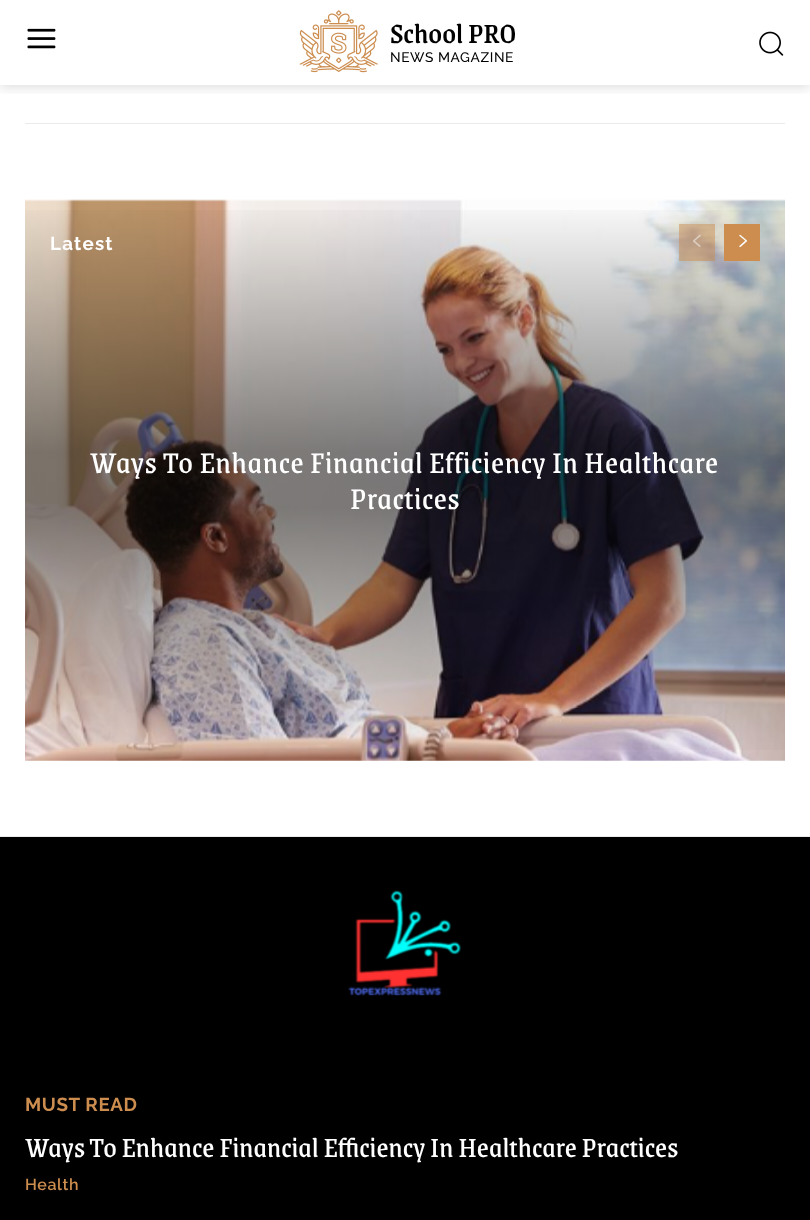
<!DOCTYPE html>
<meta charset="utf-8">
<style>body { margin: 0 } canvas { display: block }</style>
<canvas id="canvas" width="810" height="1220"></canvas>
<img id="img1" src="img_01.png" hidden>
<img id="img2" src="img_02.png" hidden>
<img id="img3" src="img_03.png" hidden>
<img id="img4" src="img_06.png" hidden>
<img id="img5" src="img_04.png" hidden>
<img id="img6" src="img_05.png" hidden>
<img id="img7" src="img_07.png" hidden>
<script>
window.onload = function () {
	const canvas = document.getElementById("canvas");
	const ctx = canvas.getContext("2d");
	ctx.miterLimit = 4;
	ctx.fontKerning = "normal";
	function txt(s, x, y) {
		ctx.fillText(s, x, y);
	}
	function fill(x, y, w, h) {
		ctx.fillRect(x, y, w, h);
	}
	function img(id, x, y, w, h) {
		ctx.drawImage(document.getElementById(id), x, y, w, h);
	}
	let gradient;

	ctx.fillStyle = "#FFFFFF";
	fill(0, 0, 810, 1220);
	img("img1", 27, 28, 29, 21);
	img("img2", 299, 10, 79, 63);
	img("img3", 759, 31, 25, 25);
	ctx.save();
	ctx.beginPath();
	ctx.rect(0, 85, 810, 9);
	ctx.clip();
	ctx.fillStyle = "rgba(0, 0, 0, 0.12)";
	ctx.filter = "blur(6px)";
	ctx.beginPath();
	ctx.rect(0, 3, 810, 85);
	ctx.fill();
	ctx.filter = "none";
	ctx.restore();
	ctx.fillStyle = "#EAEAEA";
	fill(25, 123, 760, 1);
	img("img4", 25, 199, 760, 562);
	gradient = ctx.createLinearGradient(405, 761, 405, 199);
	gradient.addColorStop(0, "rgba(10, 10, 10, 0)");
	gradient.addColorStop(0.45, "rgba(10, 10, 10, 0.5)");
	gradient.addColorStop(0.55, "rgba(10, 10, 10, 0.5)");
	gradient.addColorStop(1, "rgba(10, 10, 10, 0)");
	ctx.fillStyle = gradient;
	fill(25, 210, 760, 540);
	ctx.fillStyle = "rgba(204, 141, 79, 0.5)";
	fill(679, 224, 36, 37);
	img("img5", 693, 234, 8, 13);
	ctx.fillStyle = "#CC8D4F";
	fill(724, 224, 36, 37);
	img("img6", 739, 234, 9, 14);
	ctx.fillStyle = "#000000";
	fill(0, 837, 810, 383);
	ctx.fillStyle = "#EAEAEA";
	fill(0, 836, 810, 1);
	img("img7", 348, 890, 114, 106);
	ctx.font = "500 30px Grenze";
	ctx.fillStyle = "#000000";
	txt("School PRO", 390, 43);
	ctx.letterSpacing = "0.6px";
	ctx.font = "500 13.75px Raleway";
	txt("NEWS MAGAZINE", 390, 62);
	ctx.letterSpacing = "1.25px";
	ctx.font = "bold 18.75px Raleway";
	ctx.fillStyle = "#FFFFFF";
	txt("Latest", 50, 250);
	ctx.letterSpacing = "0.6px";
	ctx.font = "32.5px Grenze";
	txt("Ways To Enhance Financial Efficiency In Healthcare", 90, 473);
	txt("Practices", 350, 509);
	ctx.font = "bold 18.75px Raleway";
	ctx.fillStyle = "#CC8D4F";
	txt("MUST READ", 25, 1111);
	ctx.letterSpacing = "0px";
	ctx.font = "30px Grenze";
	ctx.fillStyle = "#FFFFFF";
	txt("Ways To Enhance Financial Efficiency In Healthcare Practices", 25, 1157);
	ctx.letterSpacing = "0.6px";
	ctx.font = "600 16px Raleway";
	ctx.fillStyle = "#CC8D4F";
	txt("Health", 25, 1190);
};
</script>
